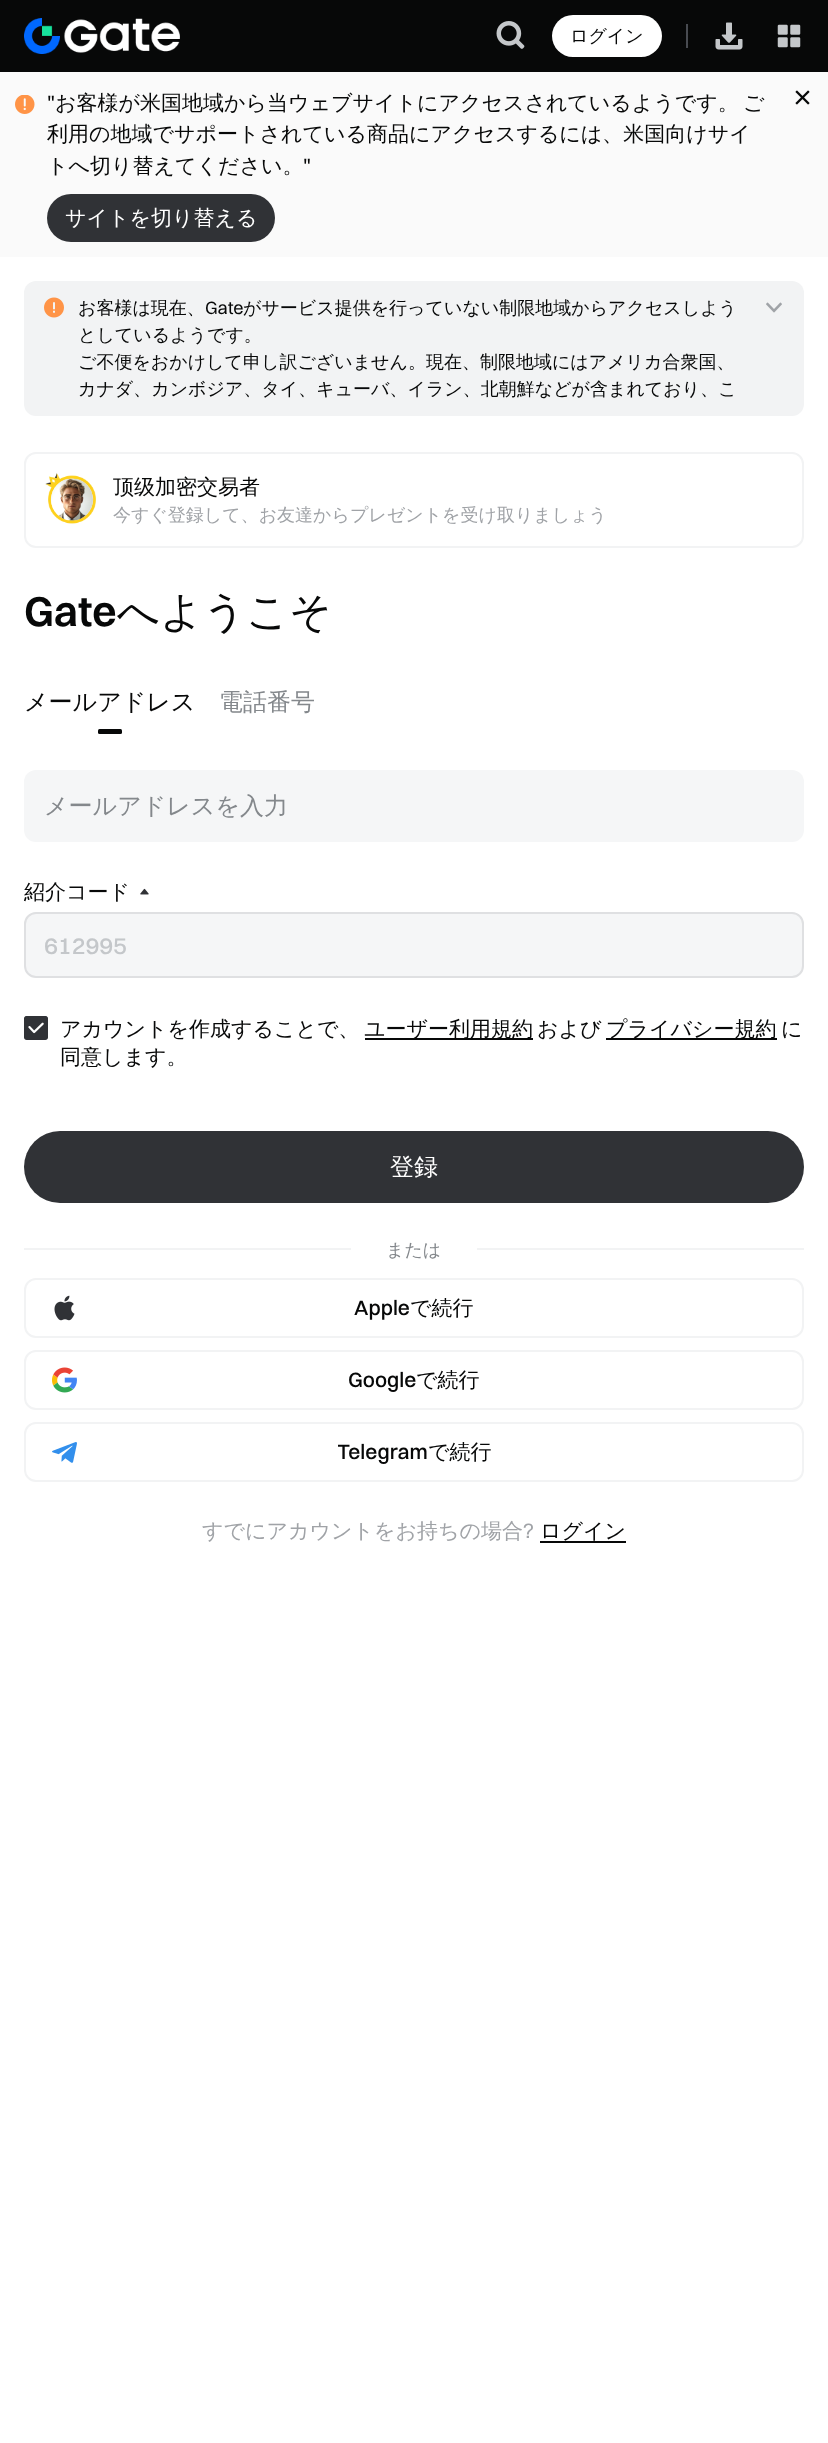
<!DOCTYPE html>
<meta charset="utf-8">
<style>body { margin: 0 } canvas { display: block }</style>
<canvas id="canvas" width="828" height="2443"></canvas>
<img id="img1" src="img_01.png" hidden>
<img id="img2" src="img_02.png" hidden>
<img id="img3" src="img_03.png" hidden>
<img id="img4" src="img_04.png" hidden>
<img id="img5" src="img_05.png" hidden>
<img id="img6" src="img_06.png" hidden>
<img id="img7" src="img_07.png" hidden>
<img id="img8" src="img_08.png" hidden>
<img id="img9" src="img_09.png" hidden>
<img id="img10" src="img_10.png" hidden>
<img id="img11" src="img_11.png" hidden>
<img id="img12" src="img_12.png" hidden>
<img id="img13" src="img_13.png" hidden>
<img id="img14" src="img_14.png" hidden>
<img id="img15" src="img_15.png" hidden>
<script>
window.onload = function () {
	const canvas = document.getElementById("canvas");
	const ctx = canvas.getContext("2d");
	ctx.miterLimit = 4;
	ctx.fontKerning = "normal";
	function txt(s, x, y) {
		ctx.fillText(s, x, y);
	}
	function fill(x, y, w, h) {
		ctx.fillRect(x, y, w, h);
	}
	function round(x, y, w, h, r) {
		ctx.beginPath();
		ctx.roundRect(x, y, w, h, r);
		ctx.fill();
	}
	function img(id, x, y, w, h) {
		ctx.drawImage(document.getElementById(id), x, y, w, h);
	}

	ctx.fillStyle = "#FFFFFF";
	fill(0, 0, 828, 2443);
	ctx.fillStyle = "#070808";
	fill(0, 0, 828, 72);
	img("img1", 24, 18, 156, 36);
	img("img2", 496, 21, 29, 28);
	ctx.fillStyle = "#FFFFFF";
	round(552, 15, 110, 42, 21);
	ctx.fillStyle = "#484B51";
	fill(686, 24, 2, 24);
	img("img3", 715, 22, 28, 28);
	img("img4", 777, 24, 24, 24);
	ctx.fillStyle = "#FAFAFA";
	fill(0, 72, 828, 185);
	img("img5", 15, 95, 20, 19);
	ctx.fillStyle = "#303236";
	round(47, 194, 228, 48, 24);
	img("img6", 795, 90, 15, 15);
	ctx.fillStyle = "#F2F3F4";
	round(24, 281, 780, 135, 12);
	img("img7", 44, 297, 20, 21);
	img("img8", 766, 302, 16, 11);
	ctx.beginPath();
	ctx.roundRect(25, 453, 778, 94, 11);
	ctx.strokeStyle = "#F2F3F4";
	ctx.lineWidth = 2;
	ctx.stroke();
	img("img9", 45, 473, 51, 51);
	img("img10", 51, 478, 42, 43);
	ctx.fillStyle = "#070808";
	round(98, 729, 24, 5, 1.5);
	ctx.fillStyle = "#F5F6F7";
	round(24, 770, 780, 72, 12);
	img("img11", 140, 888, 9, 7);
	ctx.beginPath();
	ctx.roundRect(25, 913, 778, 64, 11);
	ctx.fill();
	ctx.strokeStyle = "#DFE0E2";
	ctx.stroke();
	ctx.beginPath();
	ctx.roundRect(25, 1017, 22, 22, 2);
	ctx.strokeStyle = "#303236";
	ctx.stroke();
	img("img12", 24, 1016, 24, 24);
	ctx.fillStyle = "#070808";
	fill(365, 1038, 168, 2);
	fill(606, 1038, 171, 2);
	ctx.fillStyle = "#303236";
	round(24, 1131, 780, 72, 36);
	ctx.fillStyle = "#F2F3F4";
	fill(24, 1248, 327, 2);
	fill(477, 1248, 327, 2);
	ctx.beginPath();
	ctx.roundRect(25, 1279, 778, 58, 11);
	ctx.strokeStyle = "#F2F3F4";
	ctx.stroke();
	img("img13", 54, 1295, 21, 26);
	ctx.beginPath();
	ctx.roundRect(25, 1351, 778, 58, 11);
	ctx.stroke();
	img("img14", 52, 1367, 25, 26);
	ctx.beginPath();
	ctx.roundRect(25, 1423, 778, 58, 11);
	ctx.stroke();
	img("img15", 52, 1442, 25, 21);
	ctx.fillStyle = "#070808";
	fill(540, 1541, 86, 2);
	ctx.font = "500 18px WenQuanYi Zen Hei";
	txt("ログイン", 570, 42);
	ctx.font = "21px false";
	txt("\"", 47, 110);
	ctx.wordSpacing = "-2px";
	ctx.font = "500 21px WenQuanYi Zen Hei";
	txt("お客様が米国地域から当ウェブサイトにアクセスされているようです。 ご", 55, 110);
	ctx.wordSpacing = "0px";
	txt("利用の地域でサポートされている商品にアクセスするには、米国向けサイ", 47, 141);
	txt("トへ切り替えてください。", 47, 173);
	ctx.font = "21px false";
	txt("\"", 303, 173);
	ctx.font = "500 21px WenQuanYi Zen Hei";
	ctx.fillStyle = "#FFFFFF";
	txt("サイトを切り替える", 65, 225);
	ctx.font = "500 18px WenQuanYi Zen Hei";
	ctx.fillStyle = "#070808";
	txt("お客様は現在、", 78, 314);
	ctx.font = "18px false";
	txt("Gate", 205, 314);
	ctx.font = "500 18px WenQuanYi Zen Hei";
	txt("がサービス提供を行っていない制限地域からアクセスしよう", 243, 314);
	txt("としているようです。", 78, 341);
	txt("ご不便をおかけして申し訳ございません。現在、制限地域にはアメリカ合衆国、", 78, 368);
	txt("カナダ、カンボジア、タイ、キューバ、イラン、北朝鮮などが含まれており、こ", 78, 395);
	ctx.font = "500 21px WenQuanYi Zen Hei";
	txt("顶级加密交易者", 113, 494);
	ctx.font = "500 18px WenQuanYi Zen Hei";
	ctx.fillStyle = "#A0A3A7";
	txt("今すぐ登録して、お友達からプレゼントを受け取りましょう", 113, 521);
	ctx.font = "600 42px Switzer";
	ctx.fillStyle = "#070808";
	txt("Gate", 24, 626);
	ctx.font = "500 42px WenQuanYi Zen Hei";
	txt("へようこそ", 117, 626);
	ctx.font = "500 24px WenQuanYi Zen Hei";
	txt("メールアドレス", 24, 710);
	ctx.fillStyle = "#84888C";
	txt("電話番号", 219, 710);
	txt("メールアドレスを入力", 44, 814);
	ctx.font = "500 21px WenQuanYi Zen Hei";
	ctx.fillStyle = "#070808";
	txt("紹介コード", 24, 899);
	ctx.font = "500 24px Switzer";
	ctx.fillStyle = "#C4C7CA";
	txt("612995", 44, 954);
	ctx.font = "500 21px WenQuanYi Zen Hei";
	ctx.fillStyle = "#070808";
	txt("アカウントを作成することで、", 60, 1036);
	txt("ユーザー利用規約", 364, 1036);
	txt("および", 537, 1036);
	txt("プライバシー規約", 606, 1036);
	txt("に", 781, 1036);
	txt("同意します。", 60, 1064);
	ctx.font = "500 24px WenQuanYi Zen Hei";
	ctx.fillStyle = "#FFFFFF";
	txt("登録", 390, 1175);
	ctx.font = "500 18px WenQuanYi Zen Hei";
	ctx.fillStyle = "#84888C";
	txt("または", 386, 1256);
	ctx.font = "500 21px Switzer";
	ctx.fillStyle = "#070808";
	txt("Apple", 354, 1315);
	ctx.font = "500 21px WenQuanYi Zen Hei";
	txt("で続行", 410, 1315);
	ctx.font = "500 21px Switzer";
	txt("Google", 348, 1387);
	ctx.font = "500 21px WenQuanYi Zen Hei";
	txt("で続行", 416, 1387);
	ctx.save();
	ctx.beginPath();
	ctx.rect(338, 1424, 153, 57);
	ctx.clip();
	ctx.font = "500 21px Switzer";
	txt("Telegram", 337, 1459);
	ctx.restore();
	txt("で続行", 428, 1459);
	ctx.fillStyle = "#A0A3A7";
	txt("すでにアカウントをお持ちの場合", 202, 1538);
	ctx.font = "21px false";
	txt("?", 523, 1538);
	ctx.font = "500 21px WenQuanYi Zen Hei";
	ctx.fillStyle = "#070808";
	txt("ログイン", 540, 1538);
};
</script>
